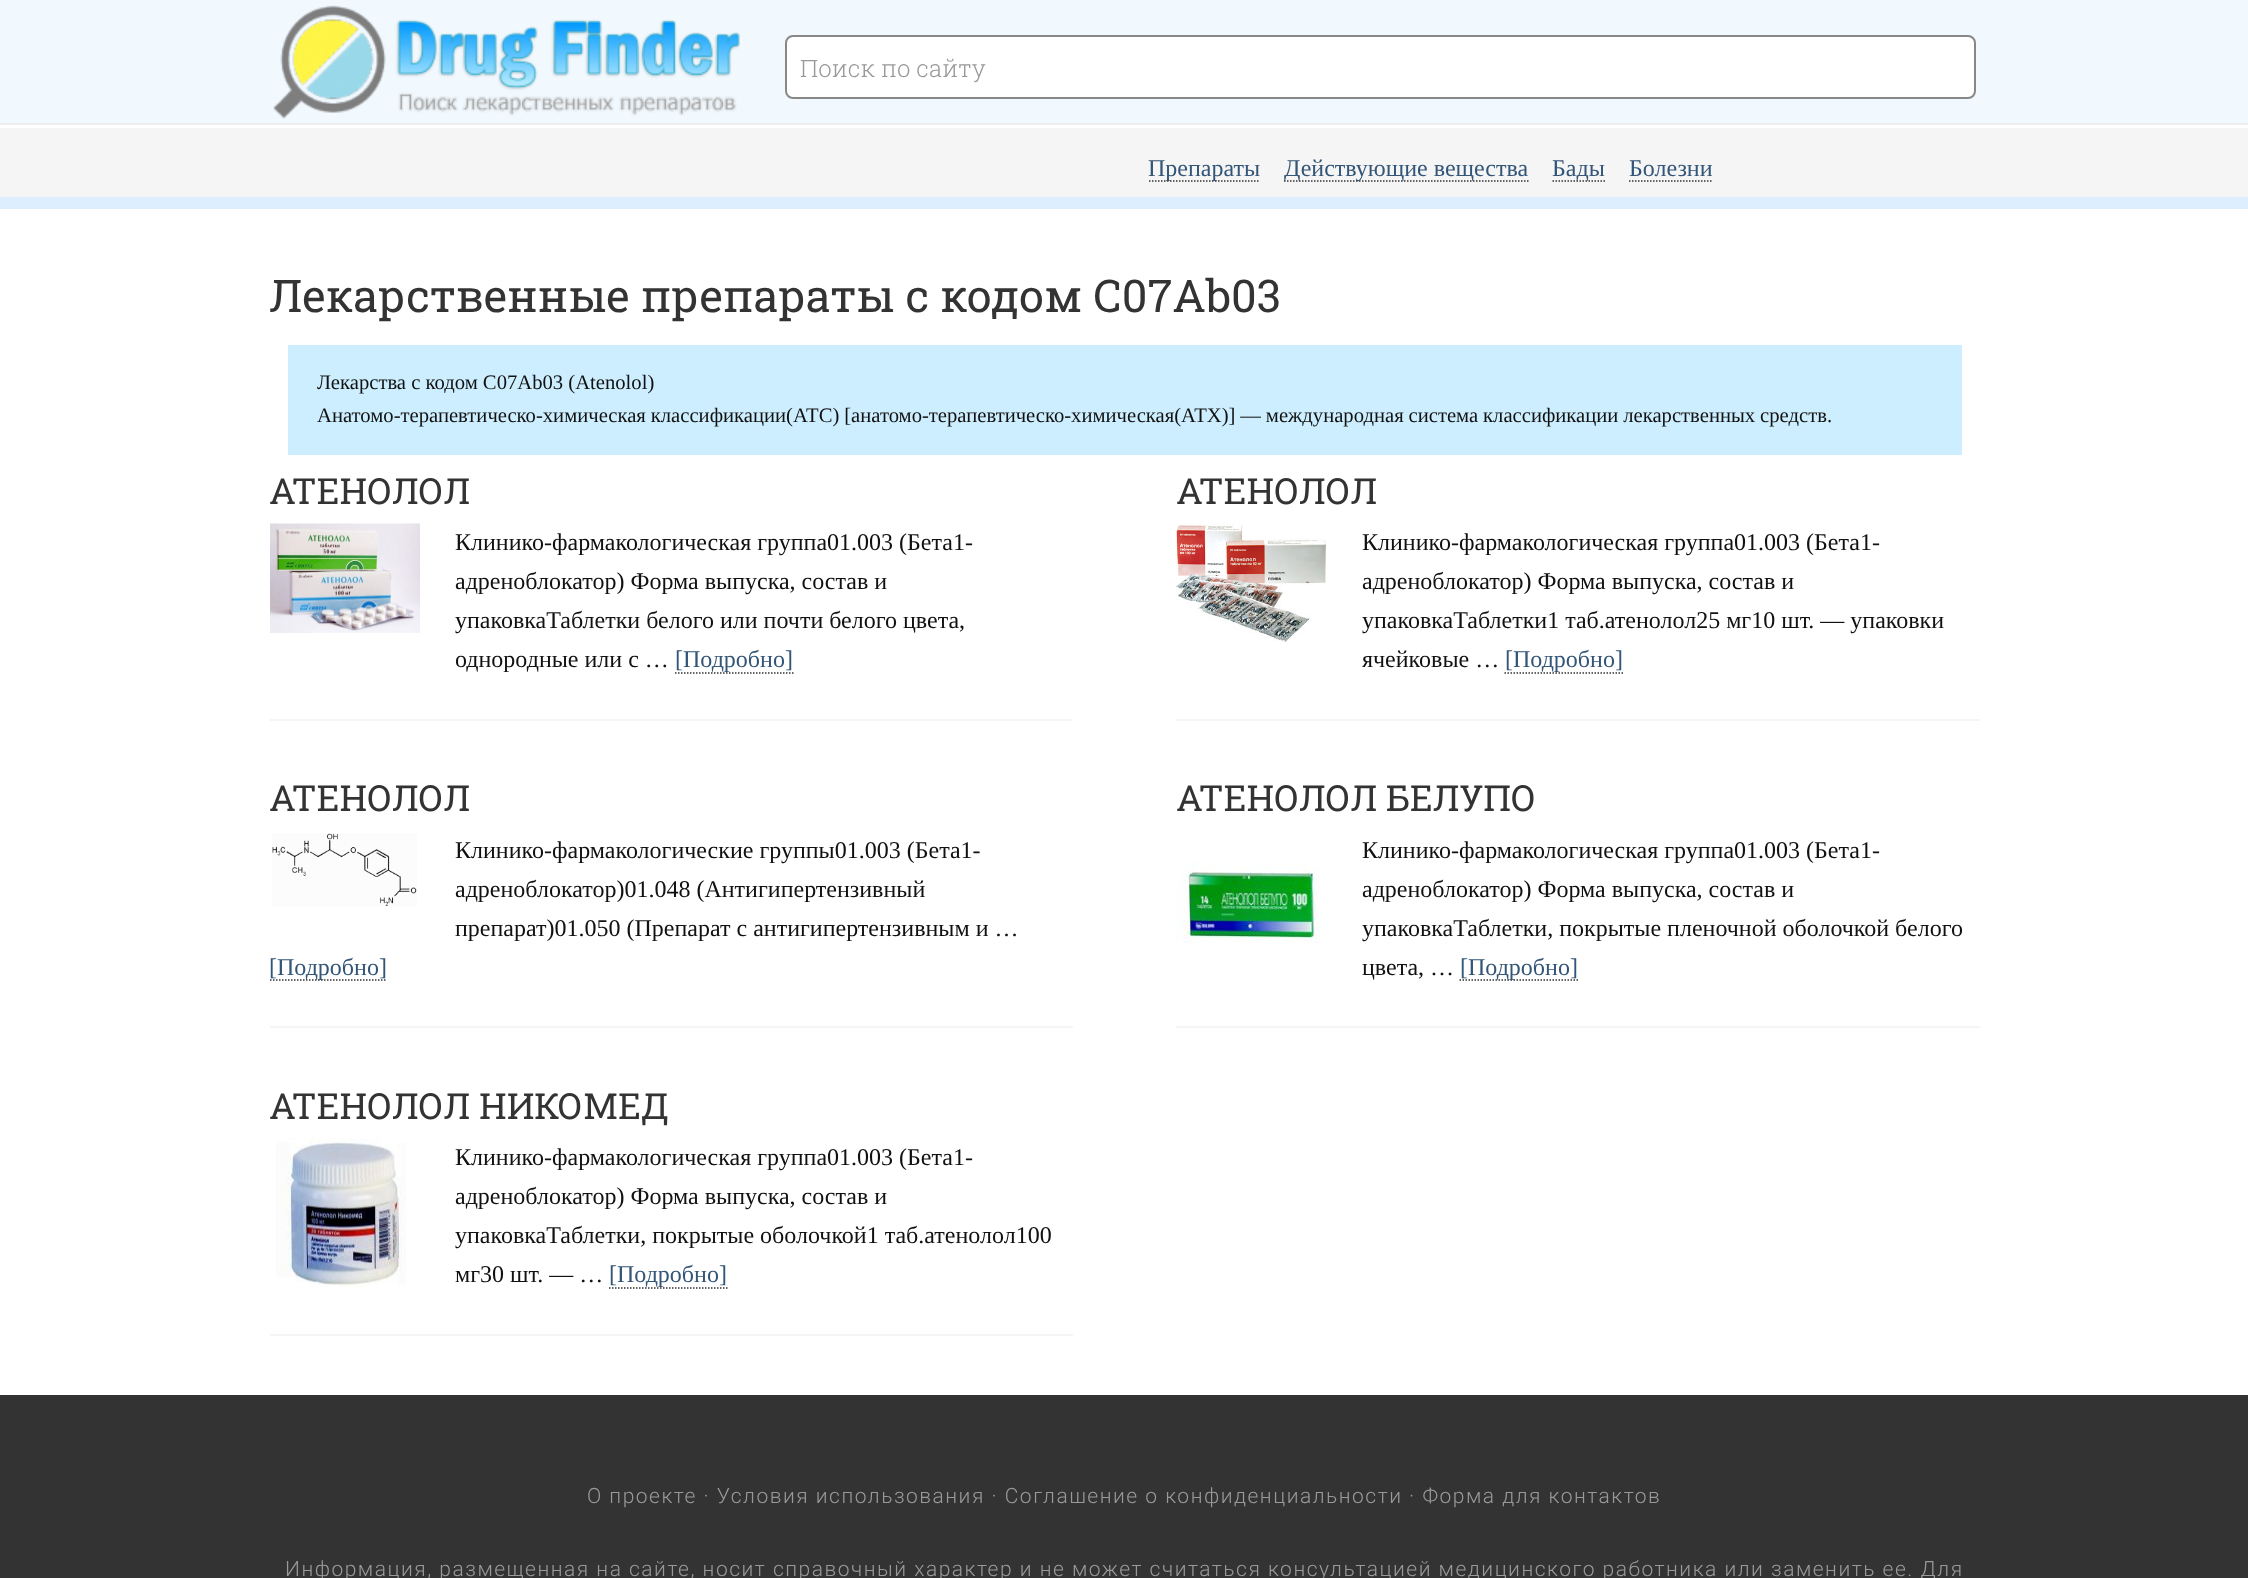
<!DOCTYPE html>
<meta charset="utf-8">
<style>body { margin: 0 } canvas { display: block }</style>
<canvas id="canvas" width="2248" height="1578"></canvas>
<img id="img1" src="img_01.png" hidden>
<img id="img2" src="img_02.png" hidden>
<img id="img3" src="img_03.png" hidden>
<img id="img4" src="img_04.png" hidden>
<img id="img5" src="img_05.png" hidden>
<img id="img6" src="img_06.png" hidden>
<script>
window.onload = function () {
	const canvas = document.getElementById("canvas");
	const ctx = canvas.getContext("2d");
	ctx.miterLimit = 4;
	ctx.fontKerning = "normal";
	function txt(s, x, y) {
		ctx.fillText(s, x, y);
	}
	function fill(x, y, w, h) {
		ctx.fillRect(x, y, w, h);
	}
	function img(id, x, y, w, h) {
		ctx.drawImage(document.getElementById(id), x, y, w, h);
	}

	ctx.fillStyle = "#FFFFFF";
	fill(0, 0, 2248, 1578);
	ctx.fillStyle = "#F1F9FF";
	fill(0, 0, 2248, 123);
	ctx.fillStyle = "#EEEEEE";
	fill(0, 123, 2248, 2);
	img("img1", 273, 5, 467, 114);
	ctx.fillStyle = "#FFFFFF";
	ctx.beginPath();
	ctx.roundRect(786, 36, 1189, 62, 7);
	ctx.fill();
	ctx.strokeStyle = "#888888";
	ctx.lineWidth = 2;
	ctx.stroke();
	ctx.fillStyle = "#F5F5F5";
	fill(0, 128, 2248, 69);
	ctx.fillStyle = "#DDEEFF";
	fill(0, 197, 2248, 12);
	ctx.beginPath();
	ctx.moveTo(1149, 181);
	ctx.lineTo(1260, 181);
	ctx.strokeStyle = "#333333";
	ctx.lineWidth = 1.5;
	ctx.setLineDash([1.5, 1.5]);
	ctx.stroke();
	ctx.beginPath();
	ctx.moveTo(1284, 181);
	ctx.lineTo(1528.5, 181);
	ctx.stroke();
	ctx.beginPath();
	ctx.moveTo(1552.5, 181);
	ctx.lineTo(1605, 181);
	ctx.stroke();
	ctx.beginPath();
	ctx.moveTo(1629, 181);
	ctx.lineTo(1713, 181);
	ctx.stroke();
	ctx.fillStyle = "#CCEEFF";
	fill(288, 345, 1674, 110);
	ctx.fillStyle = "#F5F5F5";
	fill(270, 719, 803, 2);
	img("img2", 270, 523, 150, 110);
	ctx.beginPath();
	ctx.moveTo(675, 673);
	ctx.lineTo(793.5, 673);
	ctx.stroke();
	fill(1176, 719, 804, 2);
	img("img3", 1176, 523, 150, 119);
	ctx.beginPath();
	ctx.moveTo(1504.5, 673);
	ctx.lineTo(1623, 673);
	ctx.stroke();
	fill(270, 1026, 803, 2);
	img("img4", 272, 833, 145, 73);
	ctx.beginPath();
	ctx.moveTo(270, 980);
	ctx.lineTo(387, 980);
	ctx.stroke();
	fill(1176, 1026, 804, 2);
	img("img5", 1176, 863, 144, 80);
	ctx.beginPath();
	ctx.moveTo(1459.5, 980);
	ctx.lineTo(1578, 980);
	ctx.stroke();
	fill(270, 1334, 803, 2);
	img("img6", 276, 1138, 130, 149);
	ctx.beginPath();
	ctx.moveTo(609, 1288);
	ctx.lineTo(727.5, 1288);
	ctx.stroke();
	ctx.fillStyle = "#333333";
	fill(0, 1395, 2248, 183);
	ctx.font = "300 24px Roboto Slab";
	ctx.fillStyle = "#999999";
	txt("Поиск по сайту", 800, 77);
	ctx.font = "24px Liberation Serif";
	ctx.fillStyle = "#335577";
	txt("Препараты", 1148, 176);
	txt("Действующие вещества", 1284, 176);
	txt("Бады", 1552, 176);
	txt("Болезни", 1629, 176);
	ctx.font = "45px Roboto Slab";
	ctx.fillStyle = "#333333";
	txt("Лекарственные препараты с кодом C07Ab03", 269, 312);
	ctx.font = "20.65px Liberation Serif";
	ctx.fillStyle = "#111111";
	txt("Лекарства с кодом C07Ab03 (Atenolol)", 317, 389);
	ctx.wordSpacing = "-0.25px";
	txt("Анатомо-терапевтическо-химическая классификации(АТС) [анатомо-терапевтическо-химическая(АТХ)] — международная система классификации лекарственных средств.", 317, 422);
	ctx.wordSpacing = "0px";
	ctx.font = "36px Roboto Slab";
	ctx.fillStyle = "#333333";
	txt("АТЕНОЛОЛ", 269, 504);
	ctx.font = "24px Liberation Serif";
	ctx.fillStyle = "#111111";
	txt("Клинико-фармакологическая группа01.003 (Бета1-", 455, 550);
	txt("адреноблокатор) Форма выпуска, состав и", 455, 589);
	txt("упаковкаТаблетки белого или почти белого цвета,", 455, 628);
	txt("однородные или с …", 455, 667);
	ctx.fillStyle = "#335577";
	txt("[Подробно]", 675, 667);
	ctx.font = "36px Roboto Slab";
	ctx.fillStyle = "#333333";
	txt("АТЕНОЛОЛ", 1176, 504);
	ctx.font = "24px Liberation Serif";
	ctx.fillStyle = "#111111";
	txt("Клинико-фармакологическая группа01.003 (Бета1-", 1362, 550);
	txt("адреноблокатор) Форма выпуска, состав и", 1362, 589);
	txt("упаковкаТаблетки1 таб.атенолол25 мг10 шт. — упаковки", 1362, 628);
	txt("ячейковые …", 1362, 667);
	ctx.fillStyle = "#335577";
	txt("[Подробно]", 1505, 667);
	ctx.font = "36px Roboto Slab";
	ctx.fillStyle = "#333333";
	txt("АТЕНОЛОЛ", 269, 811);
	ctx.font = "24px Liberation Serif";
	ctx.fillStyle = "#111111";
	txt("Клинико-фармакологические группы01.003 (Бета1-", 455, 858);
	txt("адреноблокатор)01.048 (Антигипертензивный", 455, 897);
	txt("препарат)01.050 (Препарат с антигипертензивным и …", 455, 936);
	ctx.fillStyle = "#335577";
	txt("[Подробно]", 269, 975);
	ctx.font = "36px Roboto Slab";
	ctx.fillStyle = "#333333";
	txt("АТЕНОЛОЛ БЕЛУПО", 1176, 811);
	ctx.font = "24px Liberation Serif";
	ctx.fillStyle = "#111111";
	txt("Клинико-фармакологическая группа01.003 (Бета1-", 1362, 858);
	txt("адреноблокатор) Форма выпуска, состав и", 1362, 897);
	txt("упаковкаТаблетки, покрытые пленочной оболочкой белого", 1362, 936);
	txt("цвета, …", 1362, 975);
	ctx.fillStyle = "#335577";
	txt("[Подробно]", 1460, 975);
	ctx.font = "36px Roboto Slab";
	ctx.fillStyle = "#333333";
	txt("АТЕНОЛОЛ НИКОМЕД", 269, 1119);
	ctx.font = "24px Liberation Serif";
	ctx.fillStyle = "#111111";
	txt("Клинико-фармакологическая группа01.003 (Бета1-", 455, 1165);
	txt("адреноблокатор) Форма выпуска, состав и", 455, 1204);
	txt("упаковкаТаблетки, покрытые оболочкой1 таб.атенолол100", 455, 1243);
	txt("мг30 шт. — …", 455, 1282);
	ctx.fillStyle = "#335577";
	txt("[Подробно]", 609, 1282);
	ctx.letterSpacing = "1.5px";
	ctx.font = "300 21px Roboto";
	ctx.fillStyle = "#999999";
	txt("О проекте · Условия использования · Соглашение о конфиденциальности · Форма для контактов", 587, 1503);
	txt("Информация, размещенная на сайте, носит справочный характер и не может считаться консультацией медицинского работника или заменить ее. Для", 285, 1576);
};
</script>
